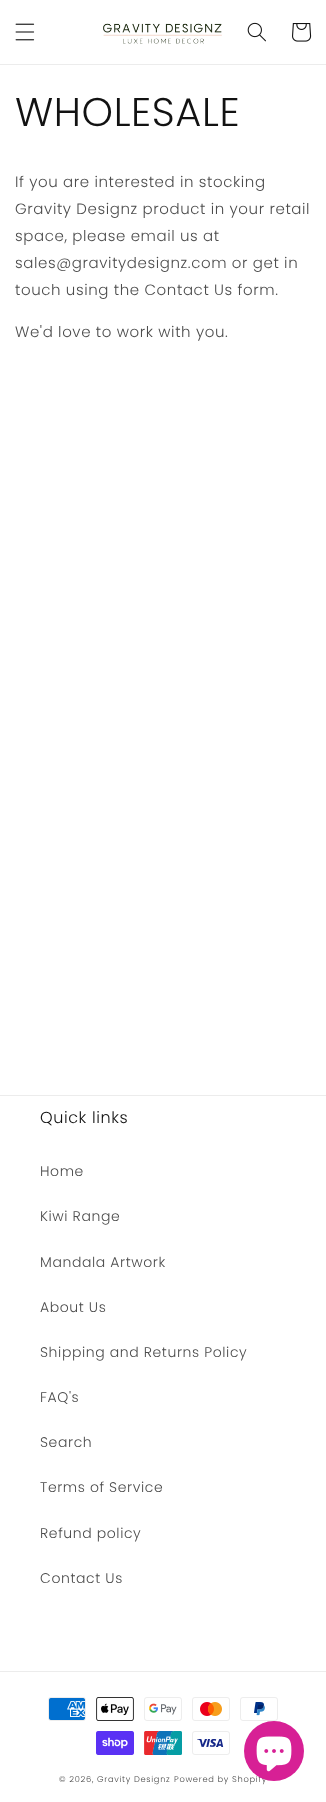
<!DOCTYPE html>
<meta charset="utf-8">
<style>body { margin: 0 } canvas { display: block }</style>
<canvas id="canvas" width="326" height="1802"></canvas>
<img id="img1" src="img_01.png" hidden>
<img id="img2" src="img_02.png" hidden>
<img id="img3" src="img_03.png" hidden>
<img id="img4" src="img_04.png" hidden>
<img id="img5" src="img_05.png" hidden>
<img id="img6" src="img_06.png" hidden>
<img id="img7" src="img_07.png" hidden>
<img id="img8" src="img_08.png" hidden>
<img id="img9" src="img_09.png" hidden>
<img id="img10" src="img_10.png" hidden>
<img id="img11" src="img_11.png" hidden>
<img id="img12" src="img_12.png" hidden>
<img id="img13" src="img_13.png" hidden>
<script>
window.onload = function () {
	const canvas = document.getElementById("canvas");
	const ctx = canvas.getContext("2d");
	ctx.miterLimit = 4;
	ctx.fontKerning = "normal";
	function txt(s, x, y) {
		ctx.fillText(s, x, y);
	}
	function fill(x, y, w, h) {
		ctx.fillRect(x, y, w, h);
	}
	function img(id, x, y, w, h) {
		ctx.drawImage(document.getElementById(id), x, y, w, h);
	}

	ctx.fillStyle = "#FFFFFF";
	fill(0, 0, 326, 1802);
	ctx.fillStyle = "#ECECEC";
	fill(0, 64, 326, 1);
	img("img1", 15, 23, 20, 18);
	img("img2", 103, 23, 119, 21);
	img("img3", 247, 22, 19, 20);
	img("img4", 292, 23, 20, 19);
	fill(0, 1095, 326, 1);
	fill(0, 1671, 326, 1);
	img("img5", 48, 1697, 38, 24);
	img("img6", 96, 1697, 38, 24);
	img("img7", 144, 1697, 38, 24);
	img("img8", 192, 1697, 38, 24);
	img("img9", 240, 1697, 38, 24);
	img("img10", 96, 1731, 38, 24);
	img("img11", 144, 1731, 38, 24);
	img("img12", 192, 1731, 38, 24);
	ctx.letterSpacing = "0.6px";
	ctx.font = "300 40px Poppins";
	ctx.fillStyle = "#121212";
	txt("WHOLESALE", 15, 126);
	ctx.font = "300 15px Poppins";
	ctx.fillStyle = "#4D4D4D";
	txt("If you are interested in stocking", 15, 187);
	txt("Gravity Designz product in your retail", 15, 214);
	txt("space, please email us at", 15, 241);
	txt("sales@gravitydesignz.com or get in", 15, 268);
	txt("touch using the Contact Us form.", 15, 295);
	txt("We'd love to work with you.", 15, 337);
	ctx.font = "300 16px Poppins";
	ctx.fillStyle = "#121212";
	txt("Quick links", 40, 1123);
	ctx.font = "300 14px Poppins";
	ctx.fillStyle = "#4D4D4D";
	txt("Home", 40, 1176);
	txt("Kiwi Range", 40, 1221);
	txt("Mandala Artwork", 40, 1267);
	txt("About Us", 40, 1312);
	txt("Shipping and Returns Policy", 40, 1357);
	txt("FAQ's", 40, 1402);
	txt("Search", 40, 1447);
	txt("Terms of Service", 40, 1492);
	txt("Refund policy", 40, 1538);
	txt("Contact Us", 40, 1583);
	ctx.letterSpacing = "0.7px";
	ctx.font = "300 8.3px Poppins";
	txt("© 2026, Gravity Designz", 59, 1782);
	txt("Powered by Shopify", 174, 1782);
	ctx.fillStyle = "#D72095";
	ctx.beginPath();
	ctx.arc(274, 1751, 30, 0, Math.PI * 2);
	ctx.fill();
	img("img13", 256, 1736, 36, 36);
};
</script>
